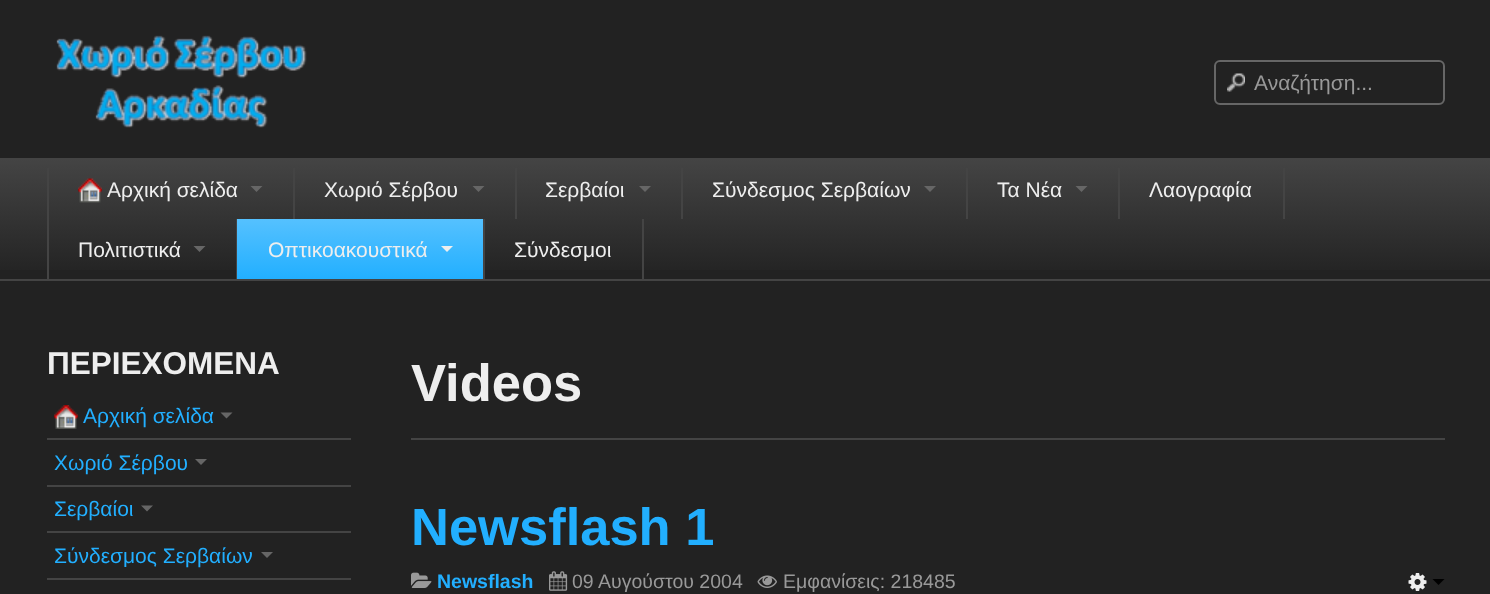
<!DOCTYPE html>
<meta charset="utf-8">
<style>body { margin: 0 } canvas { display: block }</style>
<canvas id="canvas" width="1490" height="594"></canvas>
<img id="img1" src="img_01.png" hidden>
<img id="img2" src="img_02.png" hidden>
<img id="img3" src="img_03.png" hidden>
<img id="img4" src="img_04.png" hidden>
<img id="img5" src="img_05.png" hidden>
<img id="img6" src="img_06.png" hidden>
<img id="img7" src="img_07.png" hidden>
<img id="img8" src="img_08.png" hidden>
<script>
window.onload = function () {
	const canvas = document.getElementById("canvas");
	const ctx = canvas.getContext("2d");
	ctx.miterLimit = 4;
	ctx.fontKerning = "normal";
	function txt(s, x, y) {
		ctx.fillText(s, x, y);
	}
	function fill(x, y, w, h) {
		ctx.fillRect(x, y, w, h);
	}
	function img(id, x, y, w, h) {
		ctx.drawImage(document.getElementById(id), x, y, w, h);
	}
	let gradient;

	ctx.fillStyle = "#222222";
	fill(0, 0, 1490, 594);
	img("img1", 56, 35, 251, 93);
	img("img2", 1227, 73, 18, 19);
	ctx.fillStyle = "#1F1F1F";
	ctx.beginPath();
	ctx.moveTo(1220, 63);
	ctx.lineTo(1438, 63);
	ctx.bezierCurveTo(1441, 63, 1443, 65, 1443, 68);
	ctx.lineTo(1443, 67);
	ctx.bezierCurveTo(1443, 64, 1441, 62, 1438, 62);
	ctx.lineTo(1220, 62);
	ctx.bezierCurveTo(1217, 62, 1215, 64, 1215, 67);
	ctx.lineTo(1215, 68);
	ctx.bezierCurveTo(1215, 65, 1217, 63, 1220, 63);
	ctx.closePath();
	ctx.fill();
	ctx.beginPath();
	ctx.roundRect(1215, 61, 229, 43, 5);
	ctx.strokeStyle = "#666666";
	ctx.lineWidth = 2;
	ctx.stroke();
	gradient = ctx.createLinearGradient(746, 159, 746, 279);
	gradient.addColorStop(0, "#444444");
	gradient.addColorStop(1, "#222222");
	ctx.fillStyle = gradient;
	fill(0, 160, 1490, 110);
	ctx.fillStyle = "#444444";
	fill(0, 158, 1490, 2);
	fill(0, 279, 1490, 2);
	fill(47, 168, 2, 111);
	fill(293, 168, 2, 51);
	img("img3", 78, 178, 24, 25);
	ctx.fillStyle = "#666666";
	ctx.beginPath();
	ctx.moveTo(250.5, 186);
	ctx.lineTo(262.5, 186);
	ctx.lineTo(256.5, 192);
	ctx.closePath();
	ctx.fill();
	ctx.fillStyle = "#444444";
	fill(515, 168, 2, 51);
	ctx.fillStyle = "#666666";
	ctx.beginPath();
	ctx.moveTo(472.5, 186);
	ctx.lineTo(484.5, 186);
	ctx.lineTo(478.5, 192);
	ctx.closePath();
	ctx.fill();
	ctx.fillStyle = "#444444";
	fill(681, 168, 2, 51);
	ctx.fillStyle = "#666666";
	ctx.beginPath();
	ctx.moveTo(639, 186);
	ctx.lineTo(651, 186);
	ctx.lineTo(645, 192);
	ctx.closePath();
	ctx.fill();
	ctx.fillStyle = "#444444";
	fill(966, 168, 2, 51);
	ctx.fillStyle = "#666666";
	ctx.beginPath();
	ctx.moveTo(924, 186);
	ctx.lineTo(936, 186);
	ctx.lineTo(930, 192);
	ctx.closePath();
	ctx.fill();
	ctx.fillStyle = "#444444";
	fill(1118, 168, 2, 51);
	ctx.fillStyle = "#666666";
	ctx.beginPath();
	ctx.moveTo(1075.5, 186);
	ctx.lineTo(1087.5, 186);
	ctx.lineTo(1081.5, 192);
	ctx.closePath();
	ctx.fill();
	ctx.fillStyle = "#444444";
	fill(1283, 168, 2, 51);
	fill(236, 219, 1, 60);
	ctx.fillStyle = "#666666";
	ctx.beginPath();
	ctx.moveTo(193.5, 246);
	ctx.lineTo(205.5, 246);
	ctx.lineTo(199.5, 252);
	ctx.closePath();
	ctx.fill();
	gradient = ctx.createLinearGradient(360, 219, 360, 279);
	gradient.addColorStop(0, "#55C1FF");
	gradient.addColorStop(1, "#22AFFF");
	ctx.fillStyle = gradient;
	fill(237, 219, 246, 60);
	ctx.fillStyle = "#444444";
	fill(483, 219, 2, 60);
	ctx.fillStyle = "#EEEEEE";
	ctx.beginPath();
	ctx.moveTo(441, 246);
	ctx.lineTo(453, 246);
	ctx.lineTo(447, 252);
	ctx.closePath();
	ctx.fill();
	ctx.fillStyle = "#444444";
	fill(642, 219, 2, 60);
	img("img4", 54, 405, 24, 24);
	ctx.fillStyle = "#666666";
	ctx.beginPath();
	ctx.moveTo(220.5, 412.5);
	ctx.lineTo(232.5, 412.5);
	ctx.lineTo(226.5, 418.5);
	ctx.closePath();
	ctx.fill();
	ctx.fillStyle = "#444444";
	fill(47, 438, 304, 2);
	ctx.fillStyle = "#666666";
	ctx.beginPath();
	ctx.moveTo(195, 459);
	ctx.lineTo(207, 459);
	ctx.lineTo(201, 465);
	ctx.closePath();
	ctx.fill();
	ctx.fillStyle = "#444444";
	fill(47, 485, 304, 2);
	ctx.fillStyle = "#666666";
	ctx.beginPath();
	ctx.moveTo(141, 505.5);
	ctx.lineTo(153, 505.5);
	ctx.lineTo(147, 511.5);
	ctx.closePath();
	ctx.fill();
	ctx.fillStyle = "#444444";
	fill(47, 531, 304, 2);
	ctx.fillStyle = "#666666";
	ctx.beginPath();
	ctx.moveTo(261, 552);
	ctx.lineTo(273, 552);
	ctx.lineTo(267, 558);
	ctx.closePath();
	ctx.fill();
	ctx.fillStyle = "#444444";
	fill(47, 578, 304, 2);
	fill(411, 438, 1034, 2);
	img("img5", 411, 572, 21, 16);
	img("img6", 549, 571, 19, 20);
	img("img7", 757, 575, 20, 13);
	img("img8", 1408, 573, 19, 18);
	ctx.fillStyle = "#000000";
	ctx.beginPath();
	ctx.moveTo(1432.5, 579);
	ctx.lineTo(1444.5, 579);
	ctx.lineTo(1438.5, 585);
	ctx.closePath();
	ctx.fill();
	ctx.font = "21px Liberation Sans";
	ctx.fillStyle = "#999999";
	txt("Αναζήτηση...", 1254, 90);
	ctx.fillStyle = "#EEEEEE";
	txt("Αρχική σελίδα", 107, 197);
	txt("Χωριό Σέρβου", 324, 197);
	txt("Σερβαίοι", 545, 197);
	txt("Σύνδεσμος Σερβαίων", 712, 197);
	txt("Τα Νέα", 997, 197);
	txt("Λαογραφία", 1149, 197);
	txt("Πολιτιστικά", 78, 257);
	txt("Οπτικοακουστικά", 268, 257);
	txt("Σύνδεσμοι", 514, 257);
	ctx.font = "bold 31.5px Liberation Sans";
	txt("ΠΕΡΙΕΧΟΜΕΝΑ", 47, 374);
	ctx.font = "21px Liberation Sans";
	ctx.fillStyle = "#22AFFF";
	txt("Αρχική σελίδα", 83, 423);
	txt("Χωριό Σέρβου", 54, 470);
	txt("Σερβαίοι", 54, 516);
	txt("Σύνδεσμος Σερβαίων", 54, 563);
	ctx.font = "bold 52.5px Liberation Sans";
	ctx.fillStyle = "#EEEEEE";
	txt("Videos", 411, 401);
	ctx.fillStyle = "#22AFFF";
	txt("Newsflash 1", 411, 545);
	ctx.font = "bold 19.5px Liberation Sans";
	txt("Newsflash", 437, 588);
	ctx.font = "19.5px Liberation Sans";
	ctx.fillStyle = "#999999";
	txt("09 Αυγούστου 2004", 572, 588);
	txt("Εμφανίσεις: 218485", 783, 588);
};
</script>
